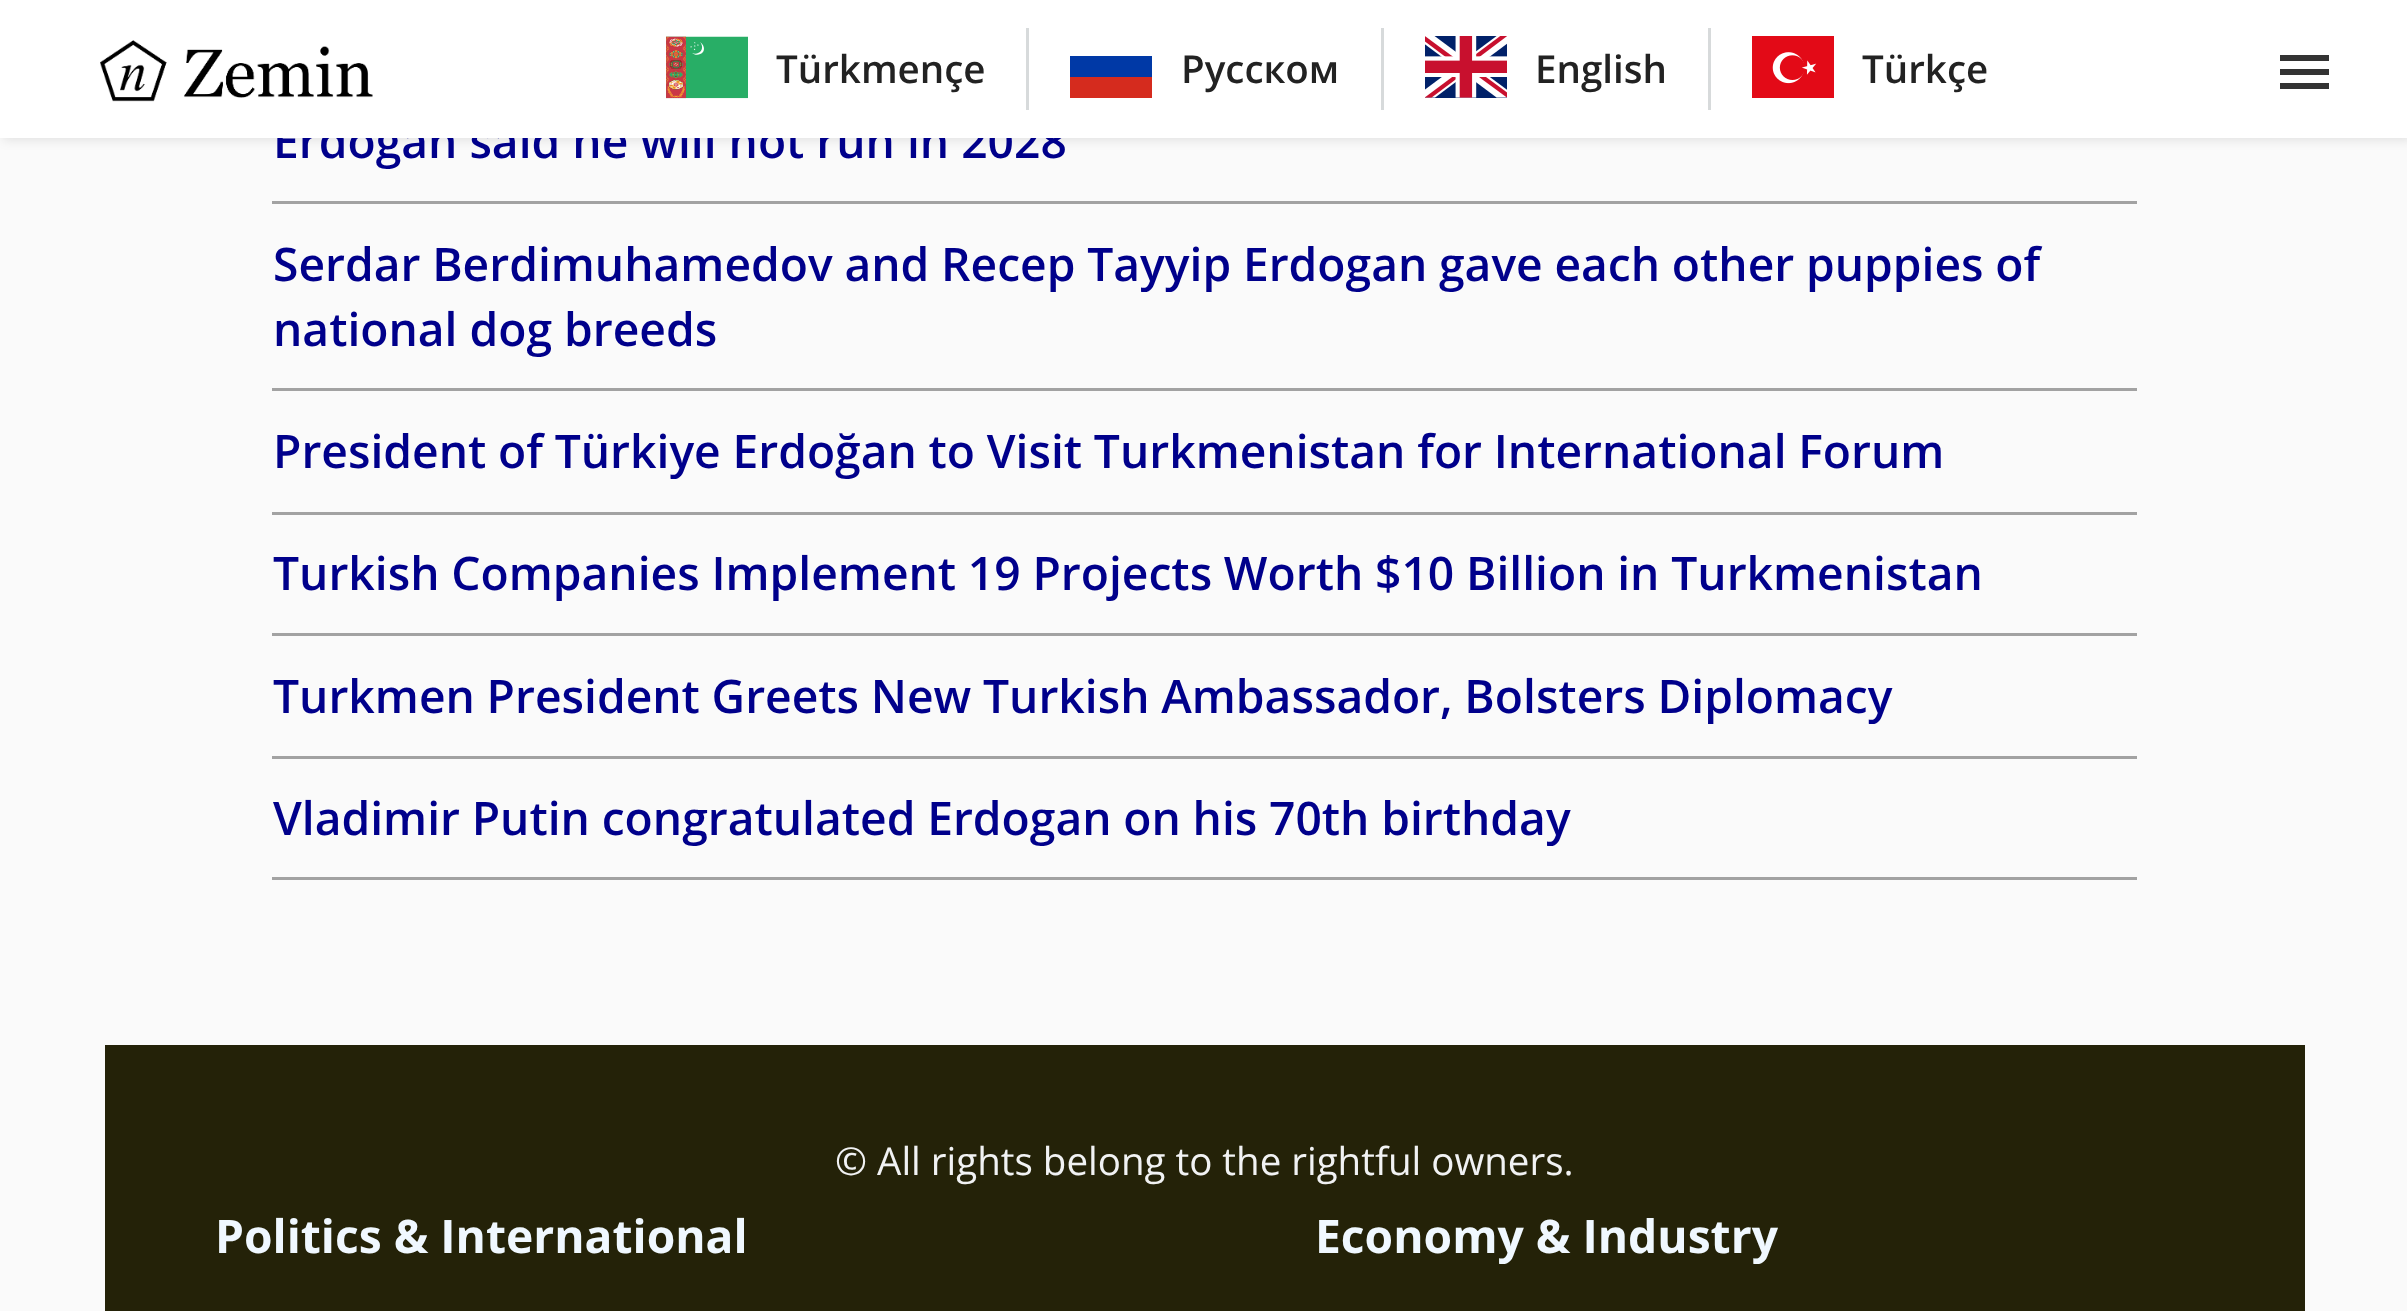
<!DOCTYPE html>
<meta charset="utf-8">
<style>body { margin: 0 } canvas { display: block }</style>
<canvas id="canvas" width="2407" height="1311"></canvas>
<img id="img1" src="img_04.png" hidden>
<img id="img2" src="img_03.png" hidden>
<img id="img3" src="img_02.png" hidden>
<img id="img4" src="img_01.png" hidden>
<script>
window.onload = function () {
	const canvas = document.getElementById("canvas");
	const ctx = canvas.getContext("2d");
	ctx.miterLimit = 4;
	ctx.fontKerning = "normal";
	function txt(s, x, y) {
		ctx.fillText(s, x, y);
	}
	function fill(x, y, w, h) {
		ctx.fillRect(x, y, w, h);
	}
	function img(id, x, y, w, h) {
		ctx.drawImage(document.getElementById(id), x, y, w, h);
	}

	ctx.fillStyle = "#FAFAFA";
	fill(0, 0, 2407, 1311);
	ctx.fillStyle = "rgba(0, 0, 0, 0.1)";
	ctx.filter = "blur(5.5px)";
	ctx.beginPath();
	ctx.rect(3, 3, 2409, 137);
	ctx.fill();
	ctx.filter = "none";
	ctx.fillStyle = "#A2A2A2";
	fill(272, 201, 1865, 3);
	fill(272, 388, 1865, 3);
	fill(272, 512, 1865, 3);
	fill(272, 633, 1865, 3);
	fill(272, 756, 1865, 3);
	fill(272, 877, 1865, 3);
	ctx.fillStyle = "#242208";
	fill(105, 1045, 2200, 266);
	ctx.font = "600 46.2px Open Sans";
	ctx.fillStyle = "#00008B";
	txt("Erdogan said he will not run in 2028", 273, 158);
	ctx.fillStyle = "#FFFFFF";
	fill(0, 0, 2407, 138);
	ctx.fillStyle = "#333333";
	fill(2280, 55, 49, 6);
	fill(2280, 83, 49, 6);
	fill(2280, 69, 49, 6);
	ctx.font = "600 38.5px Open Sans";
	ctx.fillStyle = "#222222";
	txt("Türkçe", 1862, 83);
	img("img1", 1752, 36, 82, 62);
	txt("English", 1535, 83);
	img("img2", 1425, 36, 82, 62);
	ctx.fillStyle = "#D7DADB";
	fill(1708, 28, 3, 82);
	ctx.fillStyle = "#222222";
	txt("Русском", 1181, 83);
	ctx.fillStyle = "#D52B1E";
	fill(1070, 77, 82, 21);
	ctx.fillStyle = "#0039A6";
	fill(1070, 56, 82, 21);
	ctx.fillStyle = "#D7DADB";
	fill(1381, 28, 3, 82);
	ctx.fillStyle = "#222222";
	txt("Türkmençe", 776, 83);
	img("img3", 666, 36, 82, 63);
	ctx.fillStyle = "#D7DADB";
	fill(1026, 28, 3, 82);
	img("img4", 100, 40, 273, 62);
	ctx.wordSpacing = "-0.25px";
	ctx.font = "600 46.2px Open Sans";
	ctx.fillStyle = "#00008B";
	txt("Serdar Berdimuhamedov and Recep Tayyip Erdogan gave each other puppies of", 273, 281);
	ctx.wordSpacing = "0px";
	txt("national dog breeds", 273, 346);
	ctx.wordSpacing = "-0.25px";
	txt("President of Türkiye Erdoğan to Visit Turkmenistan for International Forum", 273, 468);
	txt("Turkish Companies Implement 19 Projects Worth $10 Billion in Turkmenistan", 273, 590);
	txt("Turkmen President Greets New Turkish Ambassador, Bolsters Diplomacy", 273, 713);
	txt("Vladimir Putin congratulated Erdogan on his 70th birthday", 273, 835);
	ctx.wordSpacing = "0px";
	ctx.font = "38.5px Open Sans";
	ctx.fillStyle = "#F1F2F3";
	txt("© All rights belong to the rightful owners.", 835, 1175);
	ctx.font = "bold 46.2px Open Sans";
	ctx.fillStyle = "#F0F8FF";
	txt("Politics & International", 215, 1253);
	txt("Economy & Industry", 1315, 1253);
};
</script>
